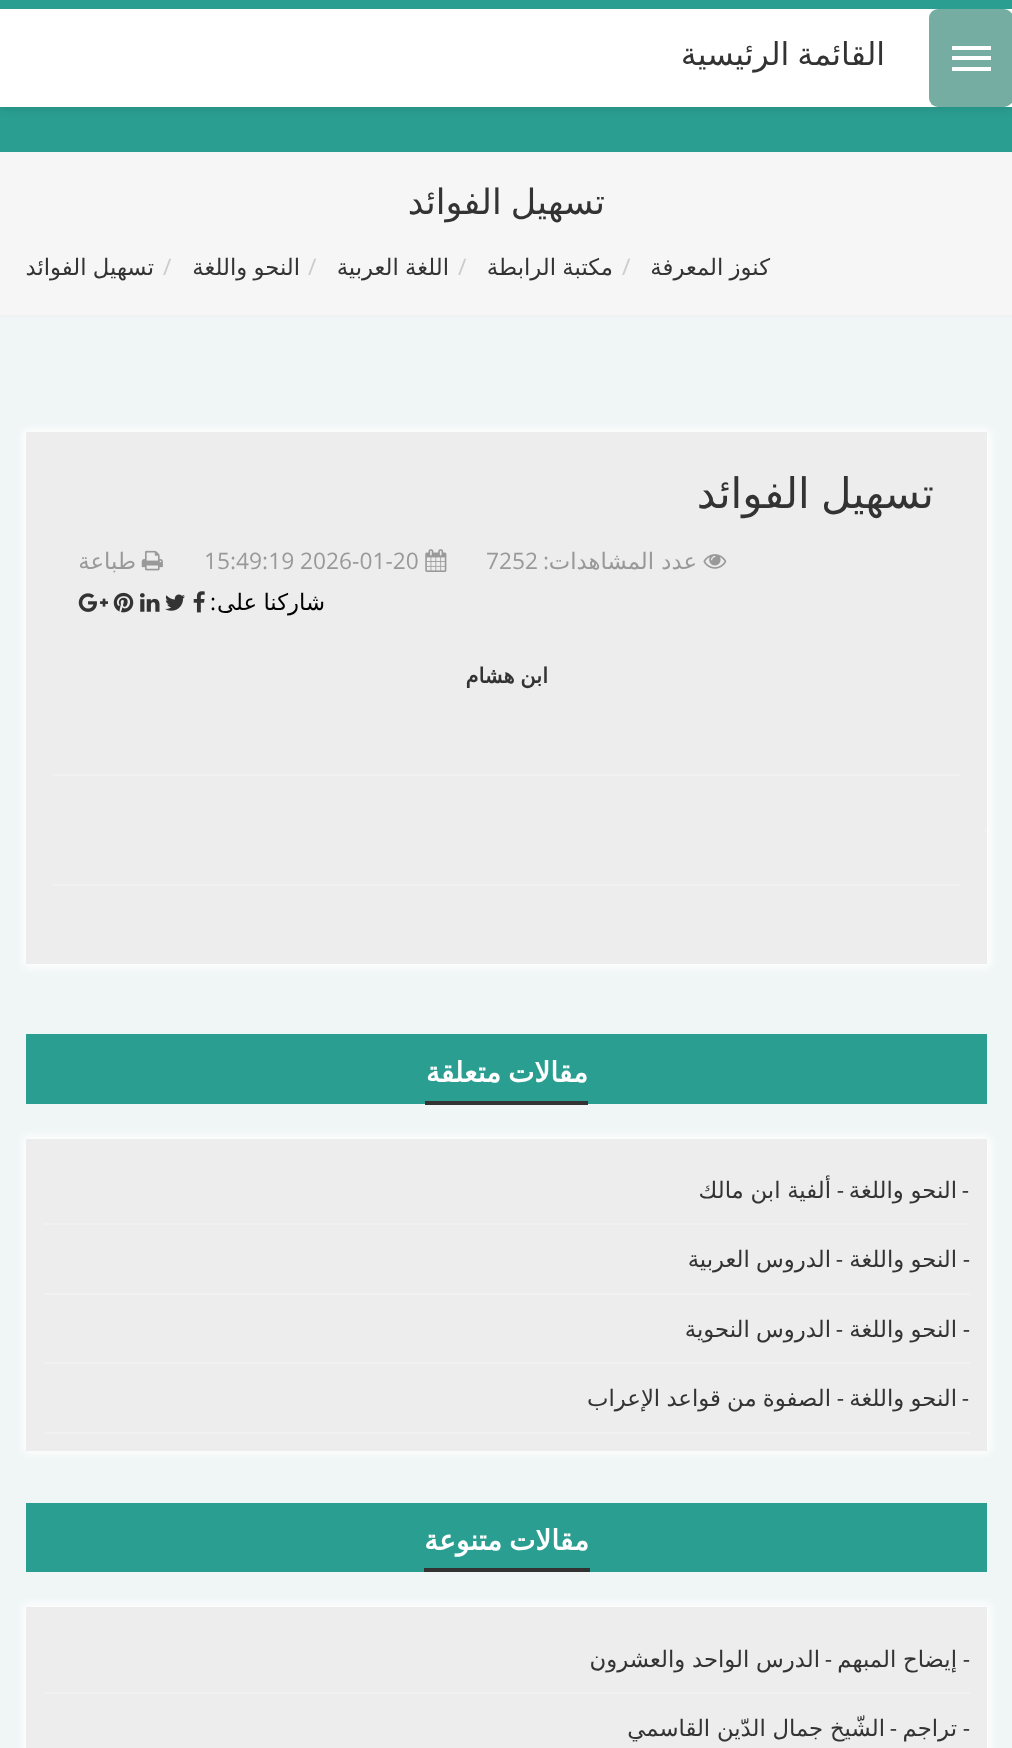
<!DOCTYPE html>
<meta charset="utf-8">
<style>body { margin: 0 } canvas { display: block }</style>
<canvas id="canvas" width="1012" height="1748"></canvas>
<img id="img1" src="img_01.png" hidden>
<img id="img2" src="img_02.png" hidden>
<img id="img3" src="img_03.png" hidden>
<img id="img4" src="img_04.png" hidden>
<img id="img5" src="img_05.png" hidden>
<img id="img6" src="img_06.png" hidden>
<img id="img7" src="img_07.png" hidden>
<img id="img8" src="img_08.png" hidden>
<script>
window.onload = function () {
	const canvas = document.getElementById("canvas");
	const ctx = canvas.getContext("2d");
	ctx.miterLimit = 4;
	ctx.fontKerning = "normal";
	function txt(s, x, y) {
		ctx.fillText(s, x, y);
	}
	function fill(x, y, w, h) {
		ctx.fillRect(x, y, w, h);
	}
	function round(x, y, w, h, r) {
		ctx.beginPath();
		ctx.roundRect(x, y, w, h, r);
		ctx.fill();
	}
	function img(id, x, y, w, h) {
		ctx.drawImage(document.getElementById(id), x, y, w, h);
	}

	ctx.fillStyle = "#F6F6F6";
	fill(0, 0, 1012, 1748);
	ctx.fillStyle = "#2A9E91";
	fill(0, 107, 1012, 45);
	ctx.fillStyle = "rgba(0, 0, 0, 0.1)";
	ctx.filter = "blur(4.5px)";
	ctx.beginPath();
	ctx.rect(0, 2, 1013, 107);
	ctx.fill();
	ctx.filter = "none";
	ctx.fillStyle = "#FFFFFF";
	fill(0, 9, 1012, 98);
	ctx.fillStyle = "#2A9E91";
	fill(0, 0, 1012, 9);
	ctx.fillStyle = "#76ADA3";
	round(929, 9, 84, 98, 9);
	ctx.fillStyle = "#FFFFFF";
	fill(952, 46, 39, 4);
	fill(952, 56, 39, 4);
	fill(952, 67, 39, 4);
	ctx.fillStyle = "#F1F1F1";
	fill(0, 315, 1012, 2);
	ctx.fillStyle = "#EFF6F5";
	fill(0, 317, 1012, 1431);
	ctx.fillStyle = "#FFFFFF";
	ctx.filter = "blur(5px)";
	ctx.beginPath();
	ctx.rect(23, 429, 968, 539);
	ctx.fill();
	ctx.filter = "none";
	ctx.fillStyle = "#EDEDED";
	fill(26, 432, 961, 532);
	img("img1", 703, 554, 24, 15);
	img("img2", 425, 549, 22, 23);
	img("img3", 141, 550, 22, 21);
	img("img4", 193, 591, 12, 22);
	img("img5", 165, 594, 20, 17);
	img("img6", 140, 593, 20, 19);
	img("img7", 113, 592, 21, 21);
	img("img8", 78, 593, 30, 19);
	ctx.fillStyle = "#F1F1F1";
	fill(53, 774, 908, 2);
	fill(53, 884, 908, 2);
	fill(985, 830, 2, 2);
	ctx.fillStyle = "#2A9E91";
	fill(26, 1034, 961, 70);
	ctx.fillStyle = "#333333";
	fill(425, 1101, 163, 4);
	ctx.fillStyle = "#FFFFFF";
	ctx.filter = "blur(5px)";
	ctx.beginPath();
	ctx.rect(23, 1136, 968, 318);
	ctx.fill();
	ctx.filter = "none";
	ctx.fillStyle = "#EDEDED";
	fill(26, 1139, 961, 312);
	ctx.fillStyle = "#F1F1F1";
	fill(44, 1223, 926, 2);
	fill(44, 1293, 926, 2);
	fill(44, 1362, 926, 2);
	fill(44, 1432, 926, 2);
	ctx.fillStyle = "#2A9E91";
	fill(26, 1503, 961, 69);
	ctx.fillStyle = "#333333";
	fill(424, 1568, 166, 4);
	ctx.fillStyle = "#FFFFFF";
	ctx.filter = "blur(5px)";
	ctx.beginPath();
	ctx.rect(23, 1603, 968, 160);
	ctx.fill();
	ctx.filter = "none";
	ctx.fillStyle = "#EDEDED";
	fill(26, 1607, 961, 141);
	ctx.fillStyle = "#F1F1F1";
	fill(44, 1692, 926, 2);
	ctx.wordSpacing = "-2px";
	ctx.direction = "rtl";
	ctx.font = "31.5px DejaVu Sans";
	ctx.fillStyle = "#333333";
	txt("القائمة الرئيسية", 885, 65);
	ctx.font = "35px DejaVu Sans";
	txt("تسهيل الفوائد", 605, 214);
	ctx.wordSpacing = "-1px";
	ctx.font = "22.75px DejaVu Sans";
	txt("كنوز المعرفة", 770, 275);
	ctx.wordSpacing = "0px";
	ctx.direction = "ltr";
	ctx.font = "22.75px Open Sans";
	ctx.fillStyle = "#CCCCCC";
	txt("/", 622, 275);
	ctx.wordSpacing = "-1px";
	ctx.direction = "rtl";
	ctx.font = "22.75px DejaVu Sans";
	ctx.fillStyle = "#333333";
	txt("مكتبة الرابطة", 613, 275);
	ctx.wordSpacing = "0px";
	ctx.direction = "ltr";
	ctx.font = "22.75px Open Sans";
	ctx.fillStyle = "#CCCCCC";
	txt("/", 458, 275);
	ctx.wordSpacing = "-1px";
	ctx.direction = "rtl";
	ctx.font = "22.75px DejaVu Sans";
	ctx.fillStyle = "#333333";
	txt("اللغة العربية", 449, 275);
	ctx.wordSpacing = "0px";
	ctx.direction = "ltr";
	ctx.font = "22.75px Open Sans";
	ctx.fillStyle = "#CCCCCC";
	txt("/", 308, 275);
	ctx.wordSpacing = "-1px";
	ctx.direction = "rtl";
	ctx.font = "22.75px DejaVu Sans";
	ctx.fillStyle = "#333333";
	txt("النحو واللغة", 300, 275);
	ctx.wordSpacing = "0px";
	ctx.direction = "ltr";
	ctx.font = "22.75px Open Sans";
	ctx.fillStyle = "#CCCCCC";
	txt("/", 163, 275);
	ctx.wordSpacing = "-1px";
	ctx.direction = "rtl";
	ctx.font = "22.75px DejaVu Sans";
	ctx.fillStyle = "#333333";
	txt("تسهيل الفوائد", 154, 275);
	ctx.wordSpacing = "-2px";
	ctx.font = "42px DejaVu Sans";
	txt("تسهيل الفوائد", 934, 508);
	ctx.wordSpacing = "0px";
	ctx.font = "22.75px DejaVu Sans";
	ctx.fillStyle = "#999999";
	txt("عدد المشاهدات", 697, 569);
	ctx.font = "22.75px Open Sans";
	txt(":", 549, 569);
	ctx.direction = "ltr";
	txt("7252", 486, 569);
	txt("15:49:19 2026-01-20", 204, 569);
	ctx.direction = "rtl";
	ctx.font = "22.75px DejaVu Sans";
	txt("طباعة", 136, 569);
	ctx.wordSpacing = "-1px";
	ctx.fillStyle = "#000000";
	txt("شاركنا على", 325, 610);
	ctx.wordSpacing = "0px";
	ctx.font = "22.75px Open Sans";
	txt(":", 216, 610);
	ctx.wordSpacing = "-1px";
	ctx.font = "bold 21px DejaVu Sans";
	ctx.fillStyle = "#333333";
	txt("ابن هشام", 548, 683);
	ctx.wordSpacing = "-2px";
	ctx.font = "bold 28px DejaVu Sans";
	ctx.fillStyle = "#FFFFFF";
	txt("مقالات متعلقة", 588, 1082);
	ctx.wordSpacing = "0px";
	ctx.font = "22.75px Open Sans";
	ctx.fillStyle = "#333333";
	txt("-", 969, 1198);
	ctx.wordSpacing = "-0.5px";
	ctx.font = "22.75px DejaVu Sans";
	txt("النحو واللغة", 957, 1198);
	ctx.wordSpacing = "0px";
	ctx.font = "22.75px Open Sans";
	txt("-", 844, 1198);
	ctx.wordSpacing = "-0.5px";
	ctx.font = "22.75px DejaVu Sans";
	txt("ألفية ابن مالك", 831, 1198);
	ctx.wordSpacing = "0px";
	ctx.font = "22.75px Open Sans";
	txt("-", 970, 1267);
	ctx.wordSpacing = "-1px";
	ctx.font = "22.75px DejaVu Sans";
	txt("النحو واللغة", 957, 1267);
	ctx.wordSpacing = "0px";
	ctx.font = "22.75px Open Sans";
	txt("-", 843, 1267);
	ctx.wordSpacing = "-1px";
	ctx.font = "22.75px DejaVu Sans";
	txt("الدروس العربية", 831, 1267);
	ctx.wordSpacing = "0px";
	ctx.font = "22.75px Open Sans";
	txt("-", 970, 1337);
	ctx.wordSpacing = "-1px";
	ctx.font = "22.75px DejaVu Sans";
	txt("النحو واللغة", 957, 1337);
	ctx.wordSpacing = "0px";
	ctx.font = "22.75px Open Sans";
	txt("-", 843, 1337);
	ctx.wordSpacing = "-1px";
	ctx.font = "22.75px DejaVu Sans";
	txt("الدروس النحوية", 831, 1337);
	ctx.wordSpacing = "0px";
	ctx.font = "22.75px Open Sans";
	txt("-", 969, 1406);
	ctx.wordSpacing = "-1px";
	ctx.font = "22.75px DejaVu Sans";
	txt("النحو واللغة", 957, 1406);
	ctx.wordSpacing = "0px";
	ctx.font = "22.75px Open Sans";
	txt("-", 844, 1406);
	ctx.wordSpacing = "-1px";
	ctx.font = "22.75px DejaVu Sans";
	txt("الصفوة من قواعد الإعراب", 831, 1406);
	ctx.wordSpacing = "-2px";
	ctx.font = "bold 28px DejaVu Sans";
	ctx.fillStyle = "#FFFFFF";
	txt("مقالات متنوعة", 589, 1550);
	ctx.wordSpacing = "0px";
	ctx.font = "22.75px Open Sans";
	ctx.fillStyle = "#333333";
	txt("-", 970, 1667);
	ctx.wordSpacing = "-0.5px";
	ctx.font = "22.75px DejaVu Sans";
	txt("إيضاح المبهم", 957, 1667);
	ctx.wordSpacing = "0px";
	ctx.font = "22.75px Open Sans";
	txt("-", 832, 1667);
	ctx.wordSpacing = "-0.5px";
	ctx.font = "22.75px DejaVu Sans";
	txt("الدرس الواحد والعشرون", 820, 1667);
	ctx.wordSpacing = "0px";
	ctx.font = "22.75px Open Sans";
	txt("-", 970, 1736);
	ctx.font = "22.75px DejaVu Sans";
	txt("تراجم", 957, 1736);
	ctx.font = "22.75px Open Sans";
	txt("-", 897, 1736);
	ctx.wordSpacing = "-0.5px";
	ctx.font = "22.75px DejaVu Sans";
	txt("الشّيخ جمال الدّين القاسمي", 885, 1736);
};
</script>
